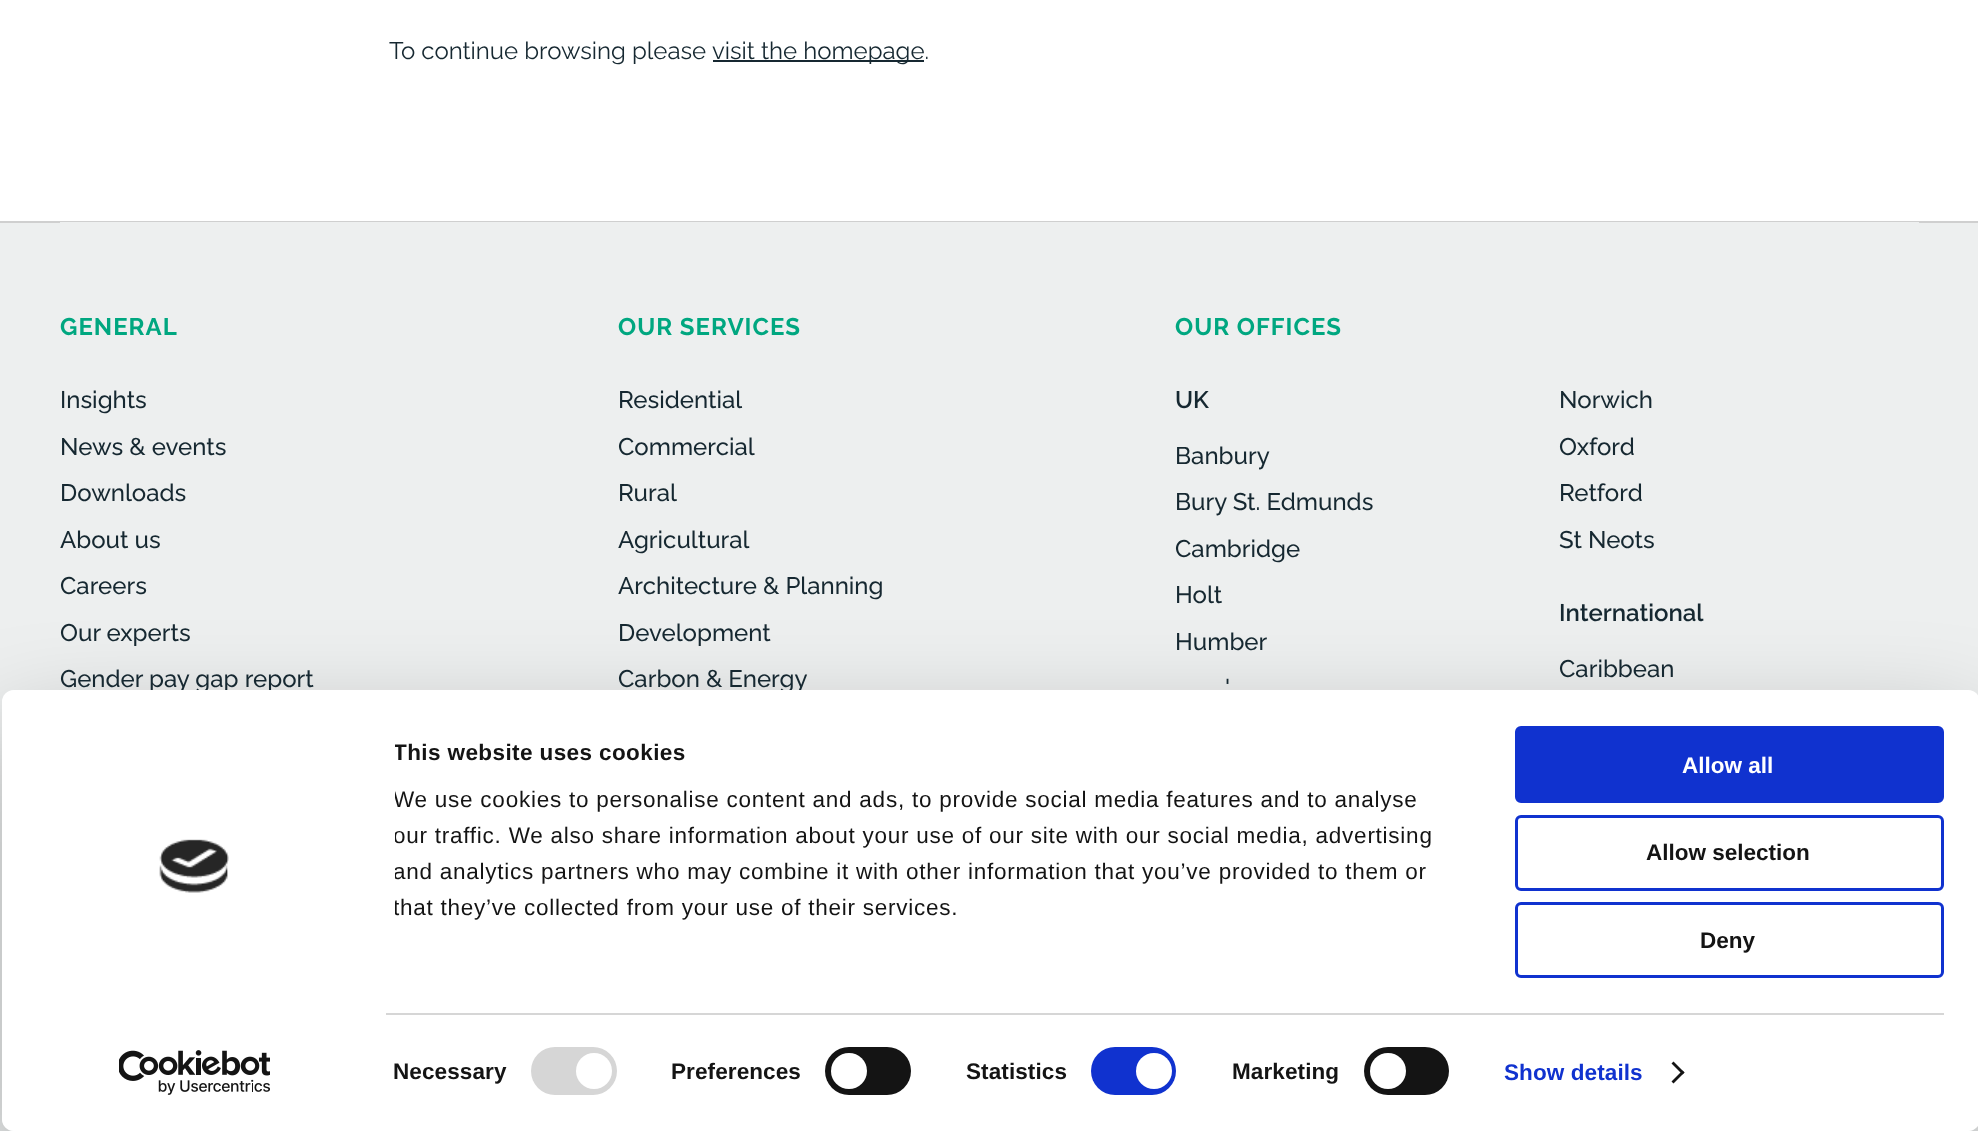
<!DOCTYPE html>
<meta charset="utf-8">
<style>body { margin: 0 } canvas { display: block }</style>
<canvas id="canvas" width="1978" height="1131"></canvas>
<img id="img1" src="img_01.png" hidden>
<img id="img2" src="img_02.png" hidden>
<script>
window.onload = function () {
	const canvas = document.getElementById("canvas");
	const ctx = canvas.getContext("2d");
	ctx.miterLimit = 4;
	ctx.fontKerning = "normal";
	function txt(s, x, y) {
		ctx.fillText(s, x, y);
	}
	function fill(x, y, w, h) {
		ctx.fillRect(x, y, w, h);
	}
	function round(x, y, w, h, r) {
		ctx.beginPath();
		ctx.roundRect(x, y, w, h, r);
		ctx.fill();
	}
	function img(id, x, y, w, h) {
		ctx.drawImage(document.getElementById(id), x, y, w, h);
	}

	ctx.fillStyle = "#FFFFFF";
	fill(0, 0, 1978, 1131);
	ctx.fillStyle = "#162831";
	fill(713, 60, 211, 2);
	ctx.fillStyle = "#EDEFEF";
	fill(0, 223, 1978, 908);
	ctx.fillStyle = "#CFCFCF";
	fill(0, 221, 1978, 2);
	ctx.fillStyle = "#EDEFEF";
	fill(60, 222, 1859, 1);
	ctx.save();
	ctx.beginPath();
	ctx.moveTo(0, 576);
	ctx.lineTo(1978, 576);
	ctx.lineTo(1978, 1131);
	ctx.lineTo(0, 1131);
	ctx.closePath();
	ctx.moveTo(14, 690);
	ctx.lineTo(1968, 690);
	ctx.bezierCurveTo(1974.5, 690, 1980, 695.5, 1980, 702);
	ctx.lineTo(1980, 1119);
	ctx.bezierCurveTo(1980, 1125.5, 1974.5, 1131, 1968, 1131);
	ctx.lineTo(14, 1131);
	ctx.bezierCurveTo(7.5, 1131, 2, 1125.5, 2, 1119);
	ctx.lineTo(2, 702);
	ctx.bezierCurveTo(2, 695.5, 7.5, 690, 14, 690);
	ctx.closePath();
	ctx.clip("evenodd");
	ctx.fillStyle = "rgba(0, 0, 0, 0.3)";
	ctx.filter = "blur(52.5px)";
	ctx.beginPath();
	ctx.roundRect(2, 735, 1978, 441, 12);
	ctx.fill();
	ctx.filter = "none";
	ctx.restore();
	ctx.font = "100 24px Raleway";
	ctx.fillStyle = "#162831";
	txt("To continue browsing please", 389, 59);
	txt("visit the homepage.", 712, 59);
	ctx.letterSpacing = "1px";
	ctx.font = "100 24px 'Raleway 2'";
	ctx.fillStyle = "#00A780";
	txt("GENERAL", 60, 335);
	ctx.letterSpacing = "0px";
	ctx.font = "100 24px 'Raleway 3'";
	ctx.fillStyle = "#162831";
	txt("Insights", 60, 408);
	txt("News & events", 60, 455);
	txt("Downloads", 60, 501);
	txt("About us", 60, 548);
	txt("Careers", 60, 594);
	txt("Our experts", 60, 641);
	txt("Gender pay gap report", 60, 687);
	ctx.letterSpacing = "1px";
	ctx.font = "100 24px 'Raleway 2'";
	ctx.fillStyle = "#00A780";
	txt("OUR SERVICES", 618, 335);
	ctx.letterSpacing = "0px";
	ctx.font = "100 24px 'Raleway 3'";
	ctx.fillStyle = "#162831";
	txt("Residential", 618, 408);
	txt("Commercial", 618, 455);
	txt("Rural", 618, 501);
	txt("Agricultural", 618, 548);
	txt("Architecture & Planning", 618, 594);
	txt("Development", 618, 641);
	txt("Carbon & Energy", 618, 687);
	ctx.letterSpacing = "1px";
	ctx.font = "100 24px 'Raleway 2'";
	ctx.fillStyle = "#00A780";
	txt("OUR OFFICES", 1175, 335);
	ctx.letterSpacing = "0px";
	ctx.font = "100 24px 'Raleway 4'";
	ctx.fillStyle = "#162831";
	txt("UK", 1175, 408);
	ctx.font = "100 24px 'Raleway 3'";
	txt("Norwich", 1559, 408);
	txt("Banbury", 1175, 464);
	txt("Oxford", 1559, 455);
	txt("Bury St. Edmunds", 1175, 510);
	txt("Retford", 1559, 501);
	txt("Cambridge", 1175, 557);
	txt("St Neots", 1559, 548);
	txt("Holt", 1175, 603);
	ctx.font = "100 24px 'Raleway 4'";
	txt("International", 1559, 621);
	ctx.font = "100 24px 'Raleway 3'";
	txt("Humber", 1175, 650);
	txt("Caribbean", 1559, 677);
	txt("'", 1225, 696);
	ctx.fillStyle = "#FFFFFF";
	round(2, 690, 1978, 441, 12);
	img("img1", 159, 839, 70, 54);
	img("img2", 119, 1050, 151, 45);
	ctx.save();
	ctx.beginPath();
	ctx.rect(395, 735, 1077, 234);
	ctx.clip();
	ctx.letterSpacing = "0.4px";
	ctx.font = "bold 22.5px Liberation Sans";
	ctx.fillStyle = "#141414";
	txt("This website uses cookies", 393, 760);
	ctx.letterSpacing = "0.75px";
	ctx.font = "22.5px Liberation Sans";
	txt("We use cookies to personalise content and ads, to provide social media features and to analyse", 393, 807);
	txt("our traffic. We also share information about your use of our site with our social media, advertising", 393, 843);
	txt("and analytics partners who may combine it with other information that you’ve provided to them or", 393, 879);
	txt("that they’ve collected from your use of their services.", 393, 915);
	ctx.restore();
	ctx.fillStyle = "#D6D6D6";
	fill(386, 1013, 1558, 2);
	ctx.letterSpacing = "0.1px";
	ctx.font = "bold 22.5px Liberation Sans";
	ctx.fillStyle = "#141414";
	txt("Necessary", 393, 1079);
	ctx.fillStyle = "#D6D6D6";
	round(531, 1047, 86, 48, 24);
	ctx.fillStyle = "#FFFFFF";
	ctx.beginPath();
	ctx.arc(594, 1071, 18, 0, Math.PI * 2);
	ctx.fill();
	ctx.fillStyle = "#141414";
	txt("Preferences", 671, 1079);
	round(825, 1047, 86, 48, 24);
	ctx.fillStyle = "#FFFFFF";
	ctx.beginPath();
	ctx.arc(849, 1071, 18, 0, Math.PI * 2);
	ctx.fill();
	ctx.fillStyle = "#141414";
	txt("Statistics", 966, 1079);
	ctx.fillStyle = "#1032CF";
	round(1091, 1047, 85, 48, 24);
	ctx.fillStyle = "#FFFFFF";
	ctx.beginPath();
	ctx.arc(1154, 1071, 18, 0, Math.PI * 2);
	ctx.fill();
	ctx.fillStyle = "#141414";
	txt("Marketing", 1232, 1079);
	round(1364, 1047, 85, 48, 24);
	ctx.fillStyle = "#FFFFFF";
	ctx.beginPath();
	ctx.arc(1388, 1071, 18, 0, Math.PI * 2);
	ctx.fill();
	ctx.fillStyle = "#1032CF";
	txt("Show details", 1504, 1080);
	ctx.fillStyle = "#141414";
	ctx.beginPath();
	ctx.moveTo(1673.5, 1061.5);
	ctx.lineTo(1684.5, 1072.5);
	ctx.lineTo(1682.5, 1074.5);
	ctx.lineTo(1671.5, 1063.5);
	ctx.closePath();
	ctx.fill();
	ctx.beginPath();
	ctx.moveTo(1682.5, 1070.5);
	ctx.lineTo(1684.5, 1072.5);
	ctx.lineTo(1673.5, 1083.5);
	ctx.lineTo(1671.5, 1081.5);
	ctx.closePath();
	ctx.fill();
	ctx.fillStyle = "#1032CF";
	ctx.beginPath();
	ctx.roundRect(1516.5, 727.5, 426, 74, 4.5);
	ctx.fill();
	ctx.strokeStyle = "#1032CF";
	ctx.lineWidth = 3;
	ctx.stroke();
	ctx.letterSpacing = "0px";
	ctx.fillStyle = "#FFFFFF";
	txt("Allow all", 1682, 773);
	ctx.beginPath();
	ctx.roundRect(1516.5, 816.5, 426, 73, 4.5);
	ctx.stroke();
	ctx.fillStyle = "#141414";
	txt("Allow selection", 1646, 860);
	ctx.beginPath();
	ctx.roundRect(1516.5, 903.5, 426, 73, 4.5);
	ctx.stroke();
	txt("Deny", 1700, 948);
};
</script>
